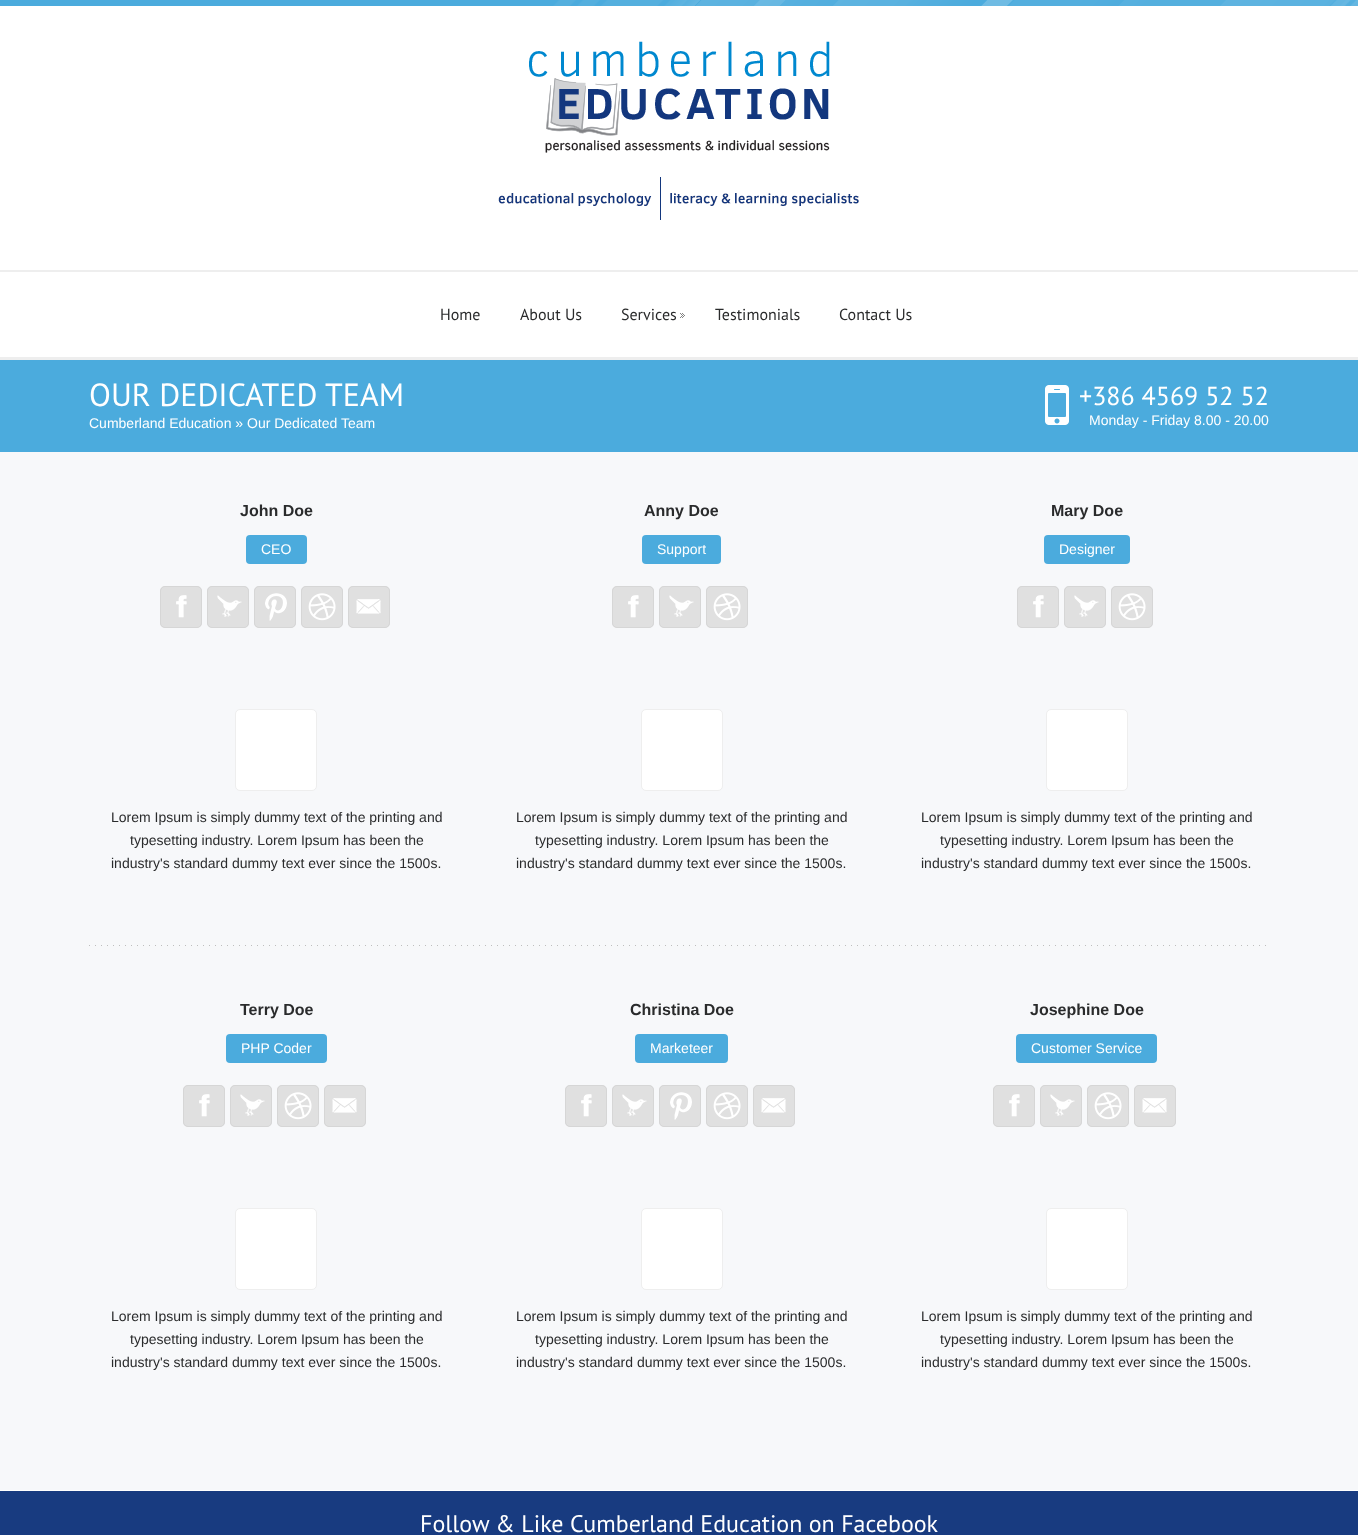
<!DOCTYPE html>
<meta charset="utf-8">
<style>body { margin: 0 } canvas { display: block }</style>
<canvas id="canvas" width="1358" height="1535"></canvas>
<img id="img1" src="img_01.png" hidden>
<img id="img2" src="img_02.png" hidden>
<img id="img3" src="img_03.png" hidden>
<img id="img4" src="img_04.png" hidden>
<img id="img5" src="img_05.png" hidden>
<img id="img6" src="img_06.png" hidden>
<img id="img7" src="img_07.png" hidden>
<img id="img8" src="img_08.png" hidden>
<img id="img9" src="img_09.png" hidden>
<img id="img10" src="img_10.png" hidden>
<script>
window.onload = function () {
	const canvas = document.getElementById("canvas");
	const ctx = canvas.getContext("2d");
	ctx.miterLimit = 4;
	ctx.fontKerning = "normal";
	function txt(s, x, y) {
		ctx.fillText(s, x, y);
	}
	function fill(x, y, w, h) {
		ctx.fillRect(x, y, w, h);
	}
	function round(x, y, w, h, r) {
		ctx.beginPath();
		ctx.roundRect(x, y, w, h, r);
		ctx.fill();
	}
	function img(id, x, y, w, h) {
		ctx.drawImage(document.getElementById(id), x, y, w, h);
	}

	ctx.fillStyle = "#F7F8FA";
	fill(0, 0, 1358, 1535);
	ctx.fillStyle = "#FFFFFF";
	fill(0, 6, 1358, 351);
	ctx.fillStyle = "#EEEEEE";
	fill(0, 357, 1358, 3);
	ctx.fillStyle = "#4BABDD";
	fill(0, 0, 1358, 6);
	img("img1", 553, 0, 805, 6);
	img("img2", 498, 41, 361, 179);
	ctx.fillStyle = "#EEEEEE";
	fill(0, 270, 1358, 2);
	img("img3", 680, 313, 5, 5);
	ctx.fillStyle = "#4BABDD";
	fill(0, 360, 1358, 92);
	img("img4", 1045, 385, 24, 40);
	round(246, 535, 61, 29, 4);
	ctx.fillStyle = "#E0E0E0";
	round(160, 586, 42, 42, 5);
	img("img5", 176, 595, 11, 23);
	ctx.beginPath();
	ctx.roundRect(160.5, 586.5, 41, 41, 4.5);
	ctx.strokeStyle = "#D6D6D6";
	ctx.stroke();
	round(207, 586, 42, 42, 5);
	img("img6", 217, 595, 25, 22);
	ctx.beginPath();
	ctx.roundRect(207.5, 586.5, 41, 41, 4.5);
	ctx.stroke();
	round(254, 586, 42, 42, 5);
	img("img7", 265, 593, 22, 28);
	ctx.beginPath();
	ctx.roundRect(254.5, 586.5, 41, 41, 4.5);
	ctx.stroke();
	round(301, 586, 42, 42, 5);
	img("img8", 308, 593, 28, 28);
	ctx.beginPath();
	ctx.roundRect(301.5, 586.5, 41, 41, 4.5);
	ctx.stroke();
	round(348, 586, 42, 42, 5);
	img("img9", 356, 599, 25, 15);
	ctx.beginPath();
	ctx.roundRect(348.5, 586.5, 41, 41, 4.5);
	ctx.stroke();
	ctx.fillStyle = "#FFFFFF";
	ctx.beginPath();
	ctx.roundRect(235.5, 709.5, 81, 81, 4.5);
	ctx.fill();
	ctx.strokeStyle = "#EEEEEE";
	ctx.stroke();
	ctx.fillStyle = "#4BABDD";
	round(642, 535, 79, 29, 4);
	ctx.fillStyle = "#E0E0E0";
	round(612, 586, 42, 42, 5);
	img("img5", 628, 595, 11, 23);
	ctx.beginPath();
	ctx.roundRect(612.5, 586.5, 41, 41, 4.5);
	ctx.strokeStyle = "#D6D6D6";
	ctx.stroke();
	round(659, 586, 42, 42, 5);
	img("img6", 669, 595, 25, 22);
	ctx.beginPath();
	ctx.roundRect(659.5, 586.5, 41, 41, 4.5);
	ctx.stroke();
	round(706, 586, 42, 42, 5);
	img("img8", 713, 593, 28, 28);
	ctx.beginPath();
	ctx.roundRect(706.5, 586.5, 41, 41, 4.5);
	ctx.stroke();
	ctx.fillStyle = "#FFFFFF";
	ctx.beginPath();
	ctx.roundRect(641.5, 709.5, 81, 81, 4.5);
	ctx.fill();
	ctx.strokeStyle = "#EEEEEE";
	ctx.stroke();
	ctx.fillStyle = "#4BABDD";
	round(1044, 535, 86, 29, 4);
	ctx.fillStyle = "#E0E0E0";
	round(1017, 586, 42, 42, 5);
	img("img5", 1033, 595, 11, 23);
	ctx.beginPath();
	ctx.roundRect(1017.5, 586.5, 41, 41, 4.5);
	ctx.strokeStyle = "#D6D6D6";
	ctx.stroke();
	round(1064, 586, 42, 42, 5);
	img("img6", 1074, 595, 25, 22);
	ctx.beginPath();
	ctx.roundRect(1064.5, 586.5, 41, 41, 4.5);
	ctx.stroke();
	round(1111, 586, 42, 42, 5);
	img("img8", 1118, 593, 28, 28);
	ctx.beginPath();
	ctx.roundRect(1111.5, 586.5, 41, 41, 4.5);
	ctx.stroke();
	ctx.fillStyle = "#FFFFFF";
	ctx.beginPath();
	ctx.roundRect(1046.5, 709.5, 81, 81, 4.5);
	ctx.fill();
	ctx.strokeStyle = "#EEEEEE";
	ctx.stroke();
	img("img10", 89, 945, 1177, 1);
	ctx.fillStyle = "#4BABDD";
	round(226, 1034, 101, 29, 4);
	ctx.fillStyle = "#E0E0E0";
	round(183, 1085, 42, 42, 5);
	img("img5", 199, 1094, 11, 23);
	ctx.beginPath();
	ctx.roundRect(183.5, 1085.5, 41, 41, 4.5);
	ctx.strokeStyle = "#D6D6D6";
	ctx.stroke();
	round(230, 1085, 42, 42, 5);
	img("img6", 240, 1094, 25, 22);
	ctx.beginPath();
	ctx.roundRect(230.5, 1085.5, 41, 41, 4.5);
	ctx.stroke();
	round(277, 1085, 42, 42, 5);
	img("img8", 284, 1092, 28, 28);
	ctx.beginPath();
	ctx.roundRect(277.5, 1085.5, 41, 41, 4.5);
	ctx.stroke();
	round(324, 1085, 42, 42, 5);
	img("img9", 332, 1098, 25, 15);
	ctx.beginPath();
	ctx.roundRect(324.5, 1085.5, 41, 41, 4.5);
	ctx.stroke();
	ctx.fillStyle = "#FFFFFF";
	ctx.beginPath();
	ctx.roundRect(235.5, 1208.5, 81, 81, 4.5);
	ctx.fill();
	ctx.strokeStyle = "#EEEEEE";
	ctx.stroke();
	ctx.fillStyle = "#4BABDD";
	round(635, 1034, 93, 29, 4);
	ctx.fillStyle = "#E0E0E0";
	round(565, 1085, 42, 42, 5);
	img("img5", 581, 1094, 11, 23);
	ctx.beginPath();
	ctx.roundRect(565.5, 1085.5, 41, 41, 4.5);
	ctx.strokeStyle = "#D6D6D6";
	ctx.stroke();
	round(612, 1085, 42, 42, 5);
	img("img6", 622, 1094, 25, 22);
	ctx.beginPath();
	ctx.roundRect(612.5, 1085.5, 41, 41, 4.5);
	ctx.stroke();
	round(659, 1085, 42, 42, 5);
	img("img7", 670, 1092, 22, 28);
	ctx.beginPath();
	ctx.roundRect(659.5, 1085.5, 41, 41, 4.5);
	ctx.stroke();
	round(706, 1085, 42, 42, 5);
	img("img8", 713, 1092, 28, 28);
	ctx.beginPath();
	ctx.roundRect(706.5, 1085.5, 41, 41, 4.5);
	ctx.stroke();
	round(753, 1085, 42, 42, 5);
	img("img9", 761, 1098, 25, 15);
	ctx.beginPath();
	ctx.roundRect(753.5, 1085.5, 41, 41, 4.5);
	ctx.stroke();
	ctx.fillStyle = "#FFFFFF";
	ctx.beginPath();
	ctx.roundRect(641.5, 1208.5, 81, 81, 4.5);
	ctx.fill();
	ctx.strokeStyle = "#EEEEEE";
	ctx.stroke();
	ctx.fillStyle = "#4BABDD";
	round(1016, 1034, 141, 29, 4);
	ctx.fillStyle = "#E0E0E0";
	round(993, 1085, 42, 42, 5);
	img("img5", 1009, 1094, 11, 23);
	ctx.beginPath();
	ctx.roundRect(993.5, 1085.5, 41, 41, 4.5);
	ctx.strokeStyle = "#D6D6D6";
	ctx.stroke();
	round(1040, 1085, 42, 42, 5);
	img("img6", 1050, 1094, 25, 22);
	ctx.beginPath();
	ctx.roundRect(1040.5, 1085.5, 41, 41, 4.5);
	ctx.stroke();
	round(1087, 1085, 42, 42, 5);
	img("img8", 1094, 1092, 28, 28);
	ctx.beginPath();
	ctx.roundRect(1087.5, 1085.5, 41, 41, 4.5);
	ctx.stroke();
	round(1134, 1085, 42, 42, 5);
	img("img9", 1142, 1098, 25, 15);
	ctx.beginPath();
	ctx.roundRect(1134.5, 1085.5, 41, 41, 4.5);
	ctx.stroke();
	ctx.fillStyle = "#FFFFFF";
	ctx.beginPath();
	ctx.roundRect(1046.5, 1208.5, 81, 81, 4.5);
	ctx.fill();
	ctx.strokeStyle = "#EEEEEE";
	ctx.stroke();
	fill(0, 1490, 1358, 1);
	ctx.fillStyle = "#183B80";
	fill(0, 1491, 1358, 44);
	ctx.font = "16px PT Sans";
	ctx.fillStyle = "#2A2B2C";
	txt("Home", 440, 320);
	txt("About Us", 520, 320);
	txt("Services", 621, 320);
	txt("Testimonials", 715, 320);
	txt("Contact Us", 839, 320);
	ctx.font = "32px PT Sans";
	ctx.fillStyle = "#FFFFFF";
	txt("OUR DEDICATED TEAM", 89, 406);
	ctx.font = "14px Liberation Sans";
	txt("Cumberland Education » Our Dedicated Team", 89, 428);
	ctx.font = "26px PT Sans";
	txt("+386 4569 52 52", 1079, 405);
	ctx.font = "14px Liberation Sans";
	txt("Monday - Friday 8.00 - 20.00", 1089, 425);
	ctx.font = "bold 16px Liberation Sans";
	ctx.fillStyle = "#2A2B2C";
	txt("John Doe", 240, 516);
	ctx.font = "14px Liberation Sans";
	ctx.fillStyle = "#FFFFFF";
	txt("CEO", 261, 554);
	ctx.fillStyle = "#2A2B2C";
	txt("Lorem Ipsum is simply dummy text of the printing and", 111, 822);
	txt("typesetting industry. Lorem Ipsum has been the", 130, 845);
	txt("industry's standard dummy text ever since the 1500s.", 111, 868);
	ctx.font = "bold 16px Liberation Sans";
	txt("Anny Doe", 644, 516);
	ctx.font = "14px Liberation Sans";
	ctx.fillStyle = "#FFFFFF";
	txt("Support", 657, 554);
	ctx.fillStyle = "#2A2B2C";
	txt("Lorem Ipsum is simply dummy text of the printing and", 516, 822);
	txt("typesetting industry. Lorem Ipsum has been the", 535, 845);
	txt("industry's standard dummy text ever since the 1500s.", 516, 868);
	ctx.font = "bold 16px Liberation Sans";
	txt("Mary Doe", 1051, 516);
	ctx.font = "14px Liberation Sans";
	ctx.fillStyle = "#FFFFFF";
	txt("Designer", 1059, 554);
	ctx.fillStyle = "#2A2B2C";
	txt("Lorem Ipsum is simply dummy text of the printing and", 921, 822);
	txt("typesetting industry. Lorem Ipsum has been the", 940, 845);
	txt("industry's standard dummy text ever since the 1500s.", 921, 868);
	ctx.font = "bold 16px Liberation Sans";
	txt("Terry Doe", 240, 1015);
	ctx.font = "14px Liberation Sans";
	ctx.fillStyle = "#FFFFFF";
	txt("PHP Coder", 241, 1053);
	ctx.fillStyle = "#2A2B2C";
	txt("Lorem Ipsum is simply dummy text of the printing and", 111, 1321);
	txt("typesetting industry. Lorem Ipsum has been the", 130, 1344);
	txt("industry's standard dummy text ever since the 1500s.", 111, 1367);
	ctx.font = "bold 16px Liberation Sans";
	txt("Christina Doe", 630, 1015);
	ctx.font = "14px Liberation Sans";
	ctx.fillStyle = "#FFFFFF";
	txt("Marketeer", 650, 1053);
	ctx.fillStyle = "#2A2B2C";
	txt("Lorem Ipsum is simply dummy text of the printing and", 516, 1321);
	txt("typesetting industry. Lorem Ipsum has been the", 535, 1344);
	txt("industry's standard dummy text ever since the 1500s.", 516, 1367);
	ctx.font = "bold 16px Liberation Sans";
	txt("Josephine Doe", 1030, 1015);
	ctx.font = "14px Liberation Sans";
	ctx.fillStyle = "#FFFFFF";
	txt("Customer Service", 1031, 1053);
	ctx.fillStyle = "#2A2B2C";
	txt("Lorem Ipsum is simply dummy text of the printing and", 921, 1321);
	txt("typesetting industry. Lorem Ipsum has been the", 940, 1344);
	txt("industry's standard dummy text ever since the 1500s.", 921, 1367);
	ctx.font = "24px PT Sans";
	ctx.fillStyle = "#FFFFFF";
	txt("Follow & Like Cumberland Education on Facebook", 420, 1532);
};
</script>
